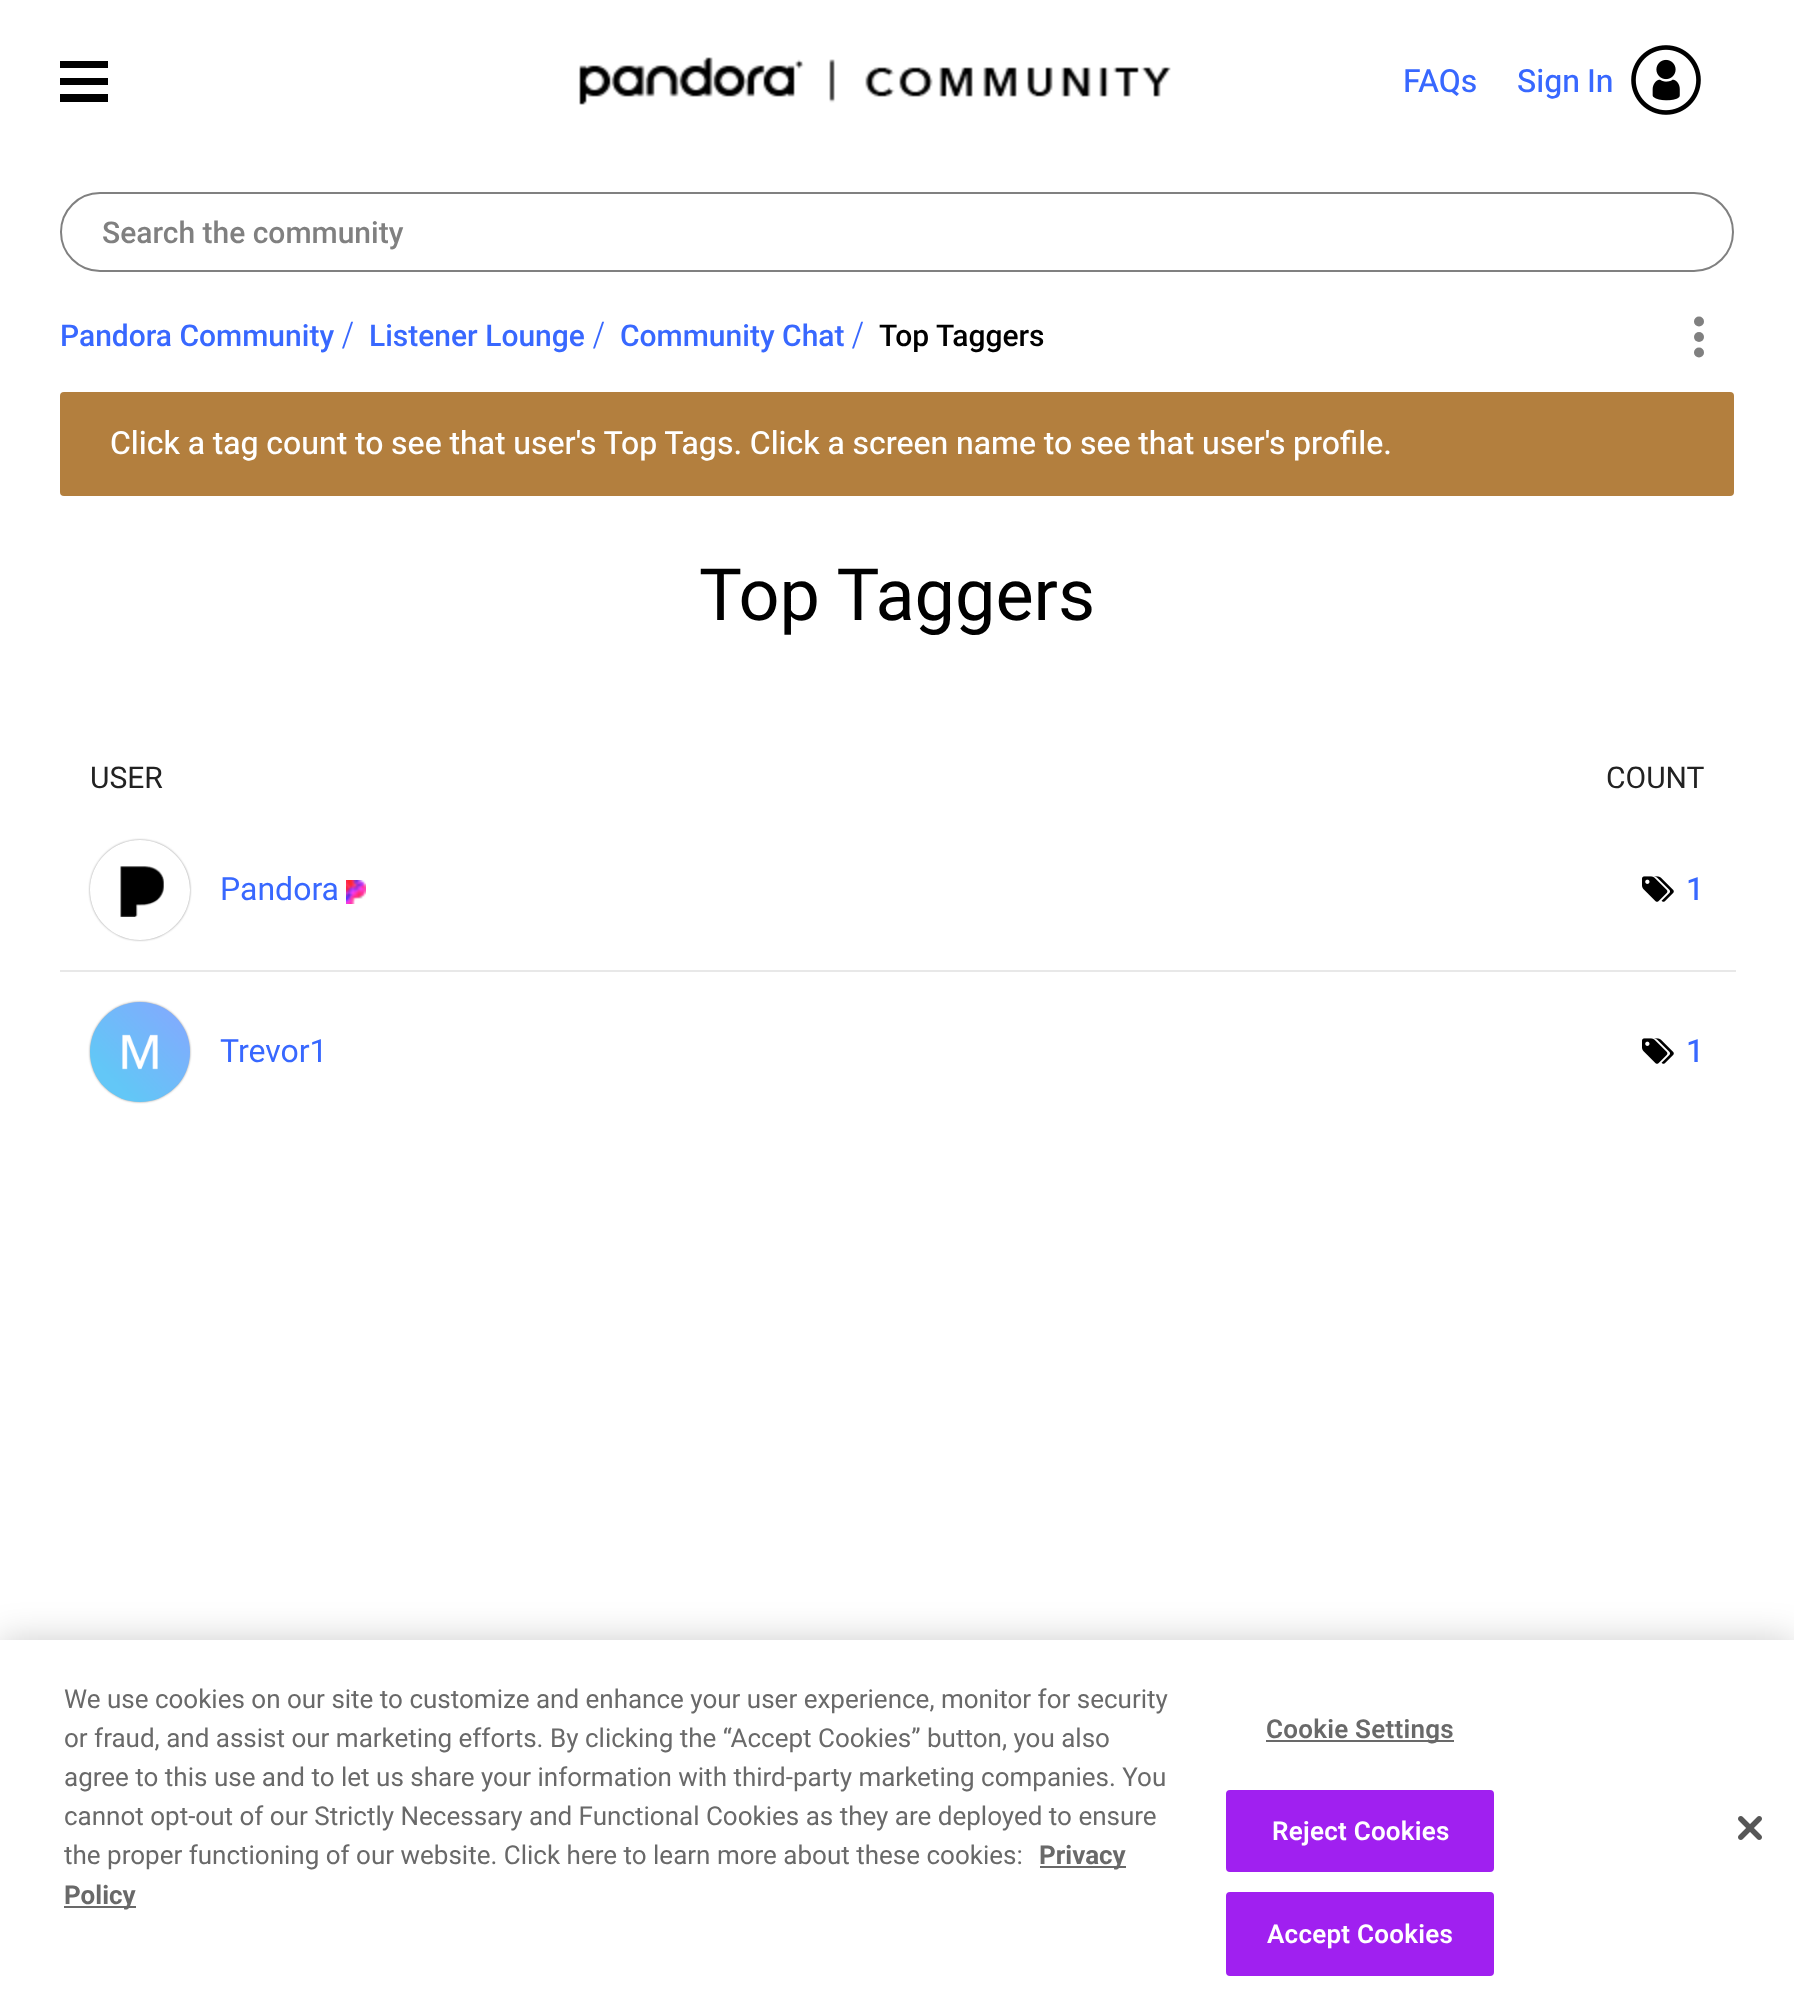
<!DOCTYPE html>
<meta charset="utf-8">
<style>body { margin: 0 } canvas { display: block }</style>
<canvas id="canvas" width="1794" height="2016"></canvas>
<img id="img1" src="img_01.png" hidden>
<img id="img2" src="img_02.png" hidden>
<img id="img3" src="img_03.png" hidden>
<img id="img4" src="img_04.png" hidden>
<img id="img5" src="img_05.png" hidden>
<img id="img6" src="img_06.png" hidden>
<img id="img7" src="img_07.png" hidden>
<script>
window.onload = function () {
	const canvas = document.getElementById("canvas");
	const ctx = canvas.getContext("2d");
	ctx.miterLimit = 4;
	ctx.fontKerning = "normal";
	function txt(s, x, y) {
		ctx.fillText(s, x, y);
	}
	function fill(x, y, w, h) {
		ctx.fillRect(x, y, w, h);
	}
	function round(x, y, w, h, r) {
		ctx.beginPath();
		ctx.roundRect(x, y, w, h, r);
		ctx.fill();
	}
	function img(id, x, y, w, h) {
		ctx.drawImage(document.getElementById(id), x, y, w, h);
	}

	ctx.fillStyle = "#FFFFFF";
	fill(0, 0, 1794, 2016);
	ctx.fillStyle = "#000000";
	ctx.beginPath();
	ctx.moveTo(60, 61);
	ctx.lineTo(108, 61);
	ctx.lineTo(108, 68);
	ctx.lineTo(60, 68);
	ctx.closePath();
	ctx.moveTo(60, 78);
	ctx.lineTo(108, 78);
	ctx.lineTo(108, 85);
	ctx.lineTo(60, 85);
	ctx.closePath();
	ctx.moveTo(60, 94);
	ctx.lineTo(108, 94);
	ctx.lineTo(108, 102);
	ctx.lineTo(60, 102);
	ctx.closePath();
	ctx.fill("evenodd");
	img("img1", 579, 57, 592, 48);
	img("img2", 1631, 45, 70, 70);
	ctx.beginPath();
	ctx.roundRect(61, 193, 1672, 78, 39);
	ctx.strokeStyle = "#808080";
	ctx.lineWidth = 2;
	ctx.stroke();
	ctx.fillStyle = "#808080";
	ctx.beginPath();
	ctx.arc(1699, 321.5, 5, 0, Math.PI * 2);
	ctx.fill();
	ctx.beginPath();
	ctx.arc(1699, 337, 5, 0, Math.PI * 2);
	ctx.fill();
	ctx.beginPath();
	ctx.arc(1699, 352.5, 5, 0, Math.PI * 2);
	ctx.fill();
	ctx.fillStyle = "#B37F3E";
	round(60, 392, 1674, 104, 4);
	ctx.save();
	ctx.beginPath();
	ctx.moveTo(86, 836);
	ctx.lineTo(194, 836);
	ctx.lineTo(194, 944);
	ctx.lineTo(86, 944);
	ctx.closePath();
	ctx.moveTo(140, 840);
	ctx.bezierCurveTo(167.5, 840, 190, 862.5, 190, 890);
	ctx.bezierCurveTo(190, 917.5, 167.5, 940, 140, 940);
	ctx.bezierCurveTo(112.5, 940, 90, 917.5, 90, 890);
	ctx.bezierCurveTo(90, 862.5, 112.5, 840, 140, 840);
	ctx.closePath();
	ctx.clip("evenodd");
	ctx.fillStyle = "#999999";
	ctx.filter = "blur(1px)";
	ctx.beginPath();
	ctx.roundRect(90, 840, 100, 100, 50);
	ctx.fill();
	ctx.filter = "none";
	ctx.restore();
	img("img3", 120, 866, 44, 51);
	img("img4", 346, 880, 20, 24);
	img("img5", 1642, 876, 32, 26);
	ctx.fillStyle = "#E8E8E8";
	fill(60, 970, 1676, 2);
	ctx.fillStyle = "#999999";
	ctx.filter = "blur(1px)";
	ctx.beginPath();
	ctx.roundRect(90, 1002, 100, 100, 50);
	ctx.fill();
	ctx.filter = "none";
	img("img6", 90, 1002, 100, 100);
	img("img5", 1642, 1038, 32, 26);
	ctx.fillStyle = "rgba(0, 0, 0, 0.2)";
	ctx.filter = "blur(18px)";
	ctx.beginPath();
	ctx.rect(0, 1640, 1794, 376);
	ctx.fill();
	ctx.filter = "none";
	ctx.fillStyle = "#FFFFFF";
	fill(0, 1640, 1794, 376);
	ctx.fillStyle = "#696969";
	fill(1040, 1866, 86, 2);
	fill(64, 1906, 72, 2);
	fill(1266, 1740, 188, 2);
	ctx.fillStyle = "#A020F0";
	ctx.beginPath();
	ctx.roundRect(1227, 1791, 266, 80, 3);
	ctx.fill();
	ctx.strokeStyle = "#A020F0";
	ctx.stroke();
	ctx.beginPath();
	ctx.roundRect(1227, 1893, 266, 82, 3);
	ctx.fill();
	ctx.stroke();
	img("img7", 1738, 1816, 24, 24);
	ctx.font = "32px 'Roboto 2'";
	ctx.fillStyle = "#3868FF";
	txt("FAQs", 1403, 92);
	ctx.wordSpacing = "-1px";
	txt("Sign In", 1517, 92);
	ctx.wordSpacing = "0px";
	ctx.font = "500 30px Roboto";
	ctx.fillStyle = "#808080";
	txt("Search the community", 102, 243);
	ctx.fillStyle = "#3868FF";
	txt("Pandora Community", 60, 346);
	ctx.font = "40px Liberation Serif";
	txt("/", 342, 348);
	ctx.font = "500 30px Roboto";
	txt("Listener Lounge", 369, 346);
	ctx.font = "40px Liberation Serif";
	txt("/", 593, 348);
	ctx.font = "500 30px Roboto";
	txt("Community Chat", 620, 346);
	ctx.font = "40px Liberation Serif";
	txt("/", 852, 348);
	ctx.font = "500 30px Roboto";
	ctx.fillStyle = "#000000";
	txt("Top Taggers", 879, 346);
	ctx.wordSpacing = "-0.25px";
	ctx.font = "32px 'Roboto 2'";
	ctx.fillStyle = "#FFFFFF";
	txt("Click a tag count to see that user's Top Tags. Click a screen name to see that user's profile.", 110, 454);
	ctx.wordSpacing = "0px";
	ctx.font = "72px Roboto";
	ctx.fillStyle = "#000000";
	txt("Top Taggers", 699, 620);
	ctx.font = "30px Roboto";
	ctx.fillStyle = "#222222";
	txt("USER", 90, 788);
	txt("COUNT", 1606, 788);
	ctx.font = "32px Roboto";
	ctx.fillStyle = "#3868FF";
	txt("Pandora", 220, 900);
	ctx.font = "32px 'Roboto 2'";
	txt("1", 1686, 900);
	ctx.font = "32px Roboto";
	txt("Trevor1", 220, 1062);
	ctx.font = "32px 'Roboto 2'";
	txt("1", 1686, 1062);
	ctx.font = "26px Roboto";
	ctx.fillStyle = "#696969";
	txt("We use cookies on our site to customize and enhance your user experience, monitor for security", 64, 1708);
	txt("or fraud, and assist our marketing efforts.", 64, 1747);
	txt("By clicking the “Accept Cookies” button, you also", 550, 1747);
	txt("agree to this use and to let us share your information with third-party marketing companies. You", 64, 1786);
	txt("cannot opt-out of our Strictly Necessary and Functional Cookies as they are deployed to ensure", 64, 1825);
	txt("the proper functioning of our website. Click here to learn more about these cookies:", 64, 1864);
	ctx.font = "bold 26px Roboto";
	txt("Privacy", 1039, 1864);
	txt("Policy", 64, 1904);
	ctx.letterSpacing = "0.25px";
	ctx.font = "600 26px Roboto";
	txt("Cookie Settings", 1266, 1738);
	ctx.fillStyle = "#FFFFFF";
	txt("Reject Cookies", 1272, 1840);
	txt("Accept Cookies", 1267, 1943);
};
</script>
